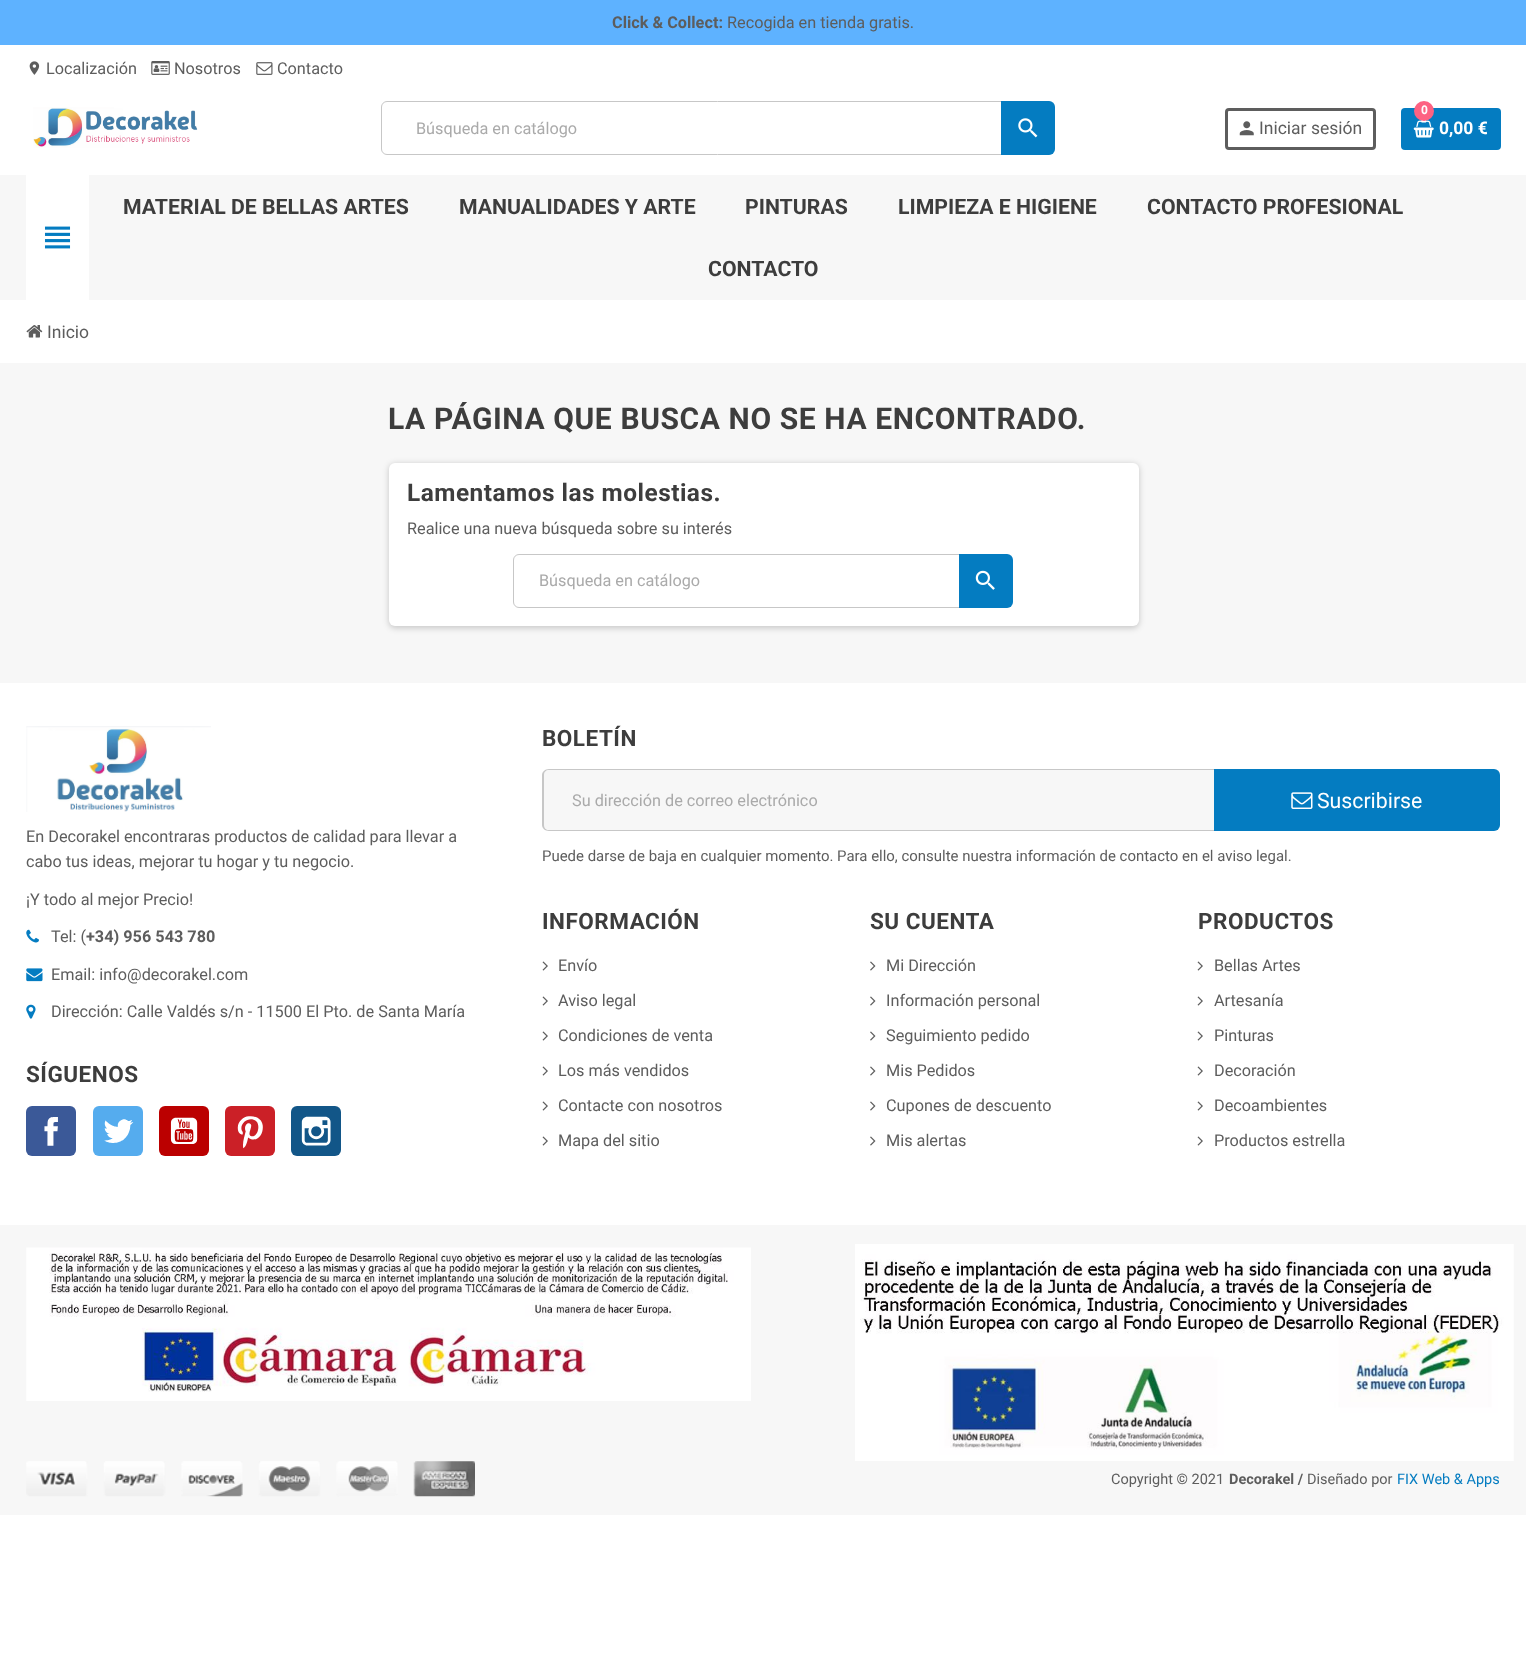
<!DOCTYPE html>
<meta charset="utf-8">
<style>body { margin: 0 } canvas { display: block }</style>
<canvas id="canvas" width="1526" height="1679"></canvas>
<img id="img1" src="img_01.png" hidden>
<img id="img2" src="img_02.png" hidden>
<img id="img3" src="img_03.png" hidden>
<img id="img4" src="img_04.png" hidden>
<img id="img5" src="img_05.png" hidden>
<img id="img6" src="img_06.png" hidden>
<img id="img7" src="img_07.png" hidden>
<img id="img8" src="img_08.png" hidden>
<img id="img9" src="img_09.png" hidden>
<img id="img10" src="img_10.png" hidden>
<img id="img11" src="img_11.png" hidden>
<img id="img12" src="img_12.png" hidden>
<img id="img13" src="img_13.png" hidden>
<img id="img14" src="img_14.png" hidden>
<img id="img15" src="img_15.png" hidden>
<img id="img16" src="img_16.png" hidden>
<img id="img17" src="img_17.png" hidden>
<img id="img18" src="img_18.png" hidden>
<img id="img19" src="img_19.png" hidden>
<img id="img20" src="img_20.png" hidden>
<img id="img21" src="img_21.png" hidden>
<img id="img22" src="img_22.png" hidden>
<img id="img23" src="img_23.png" hidden>
<img id="img24" src="img_24.png" hidden>
<img id="img25" src="img_25.png" hidden>
<script>
window.onload = function () {
	const canvas = document.getElementById("canvas");
	const ctx = canvas.getContext("2d");
	ctx.miterLimit = 4;
	ctx.fontKerning = "normal";
	function txt(s, x, y) {
		ctx.fillText(s, x, y);
	}
	function fill(x, y, w, h) {
		ctx.fillRect(x, y, w, h);
	}
	function round(x, y, w, h, r) {
		ctx.beginPath();
		ctx.roundRect(x, y, w, h, r);
		ctx.fill();
	}
	function img(id, x, y, w, h) {
		ctx.drawImage(document.getElementById(id), x, y, w, h);
	}

	ctx.fillStyle = "#FFFFFF";
	fill(0, 0, 1526, 1679);
	ctx.fillStyle = "#5EB2FF";
	fill(0, 0, 1526, 45);
	img("img1", 29, 61, 11, 14);
	img("img2", 151, 61, 19, 14);
	img("img3", 256, 62, 17, 13);
	img("img4", 33, 107, 165, 41);
	ctx.beginPath();
	ctx.roundRect(381.5, 101.5, 672, 53, 5.5);
	ctx.strokeStyle = "#C7C7C7";
	ctx.stroke();
	ctx.fillStyle = "#047CC1";
	ctx.beginPath();
	ctx.roundRect(1001, 101, 54, 54, [0, 6, 6, 0]);
	ctx.fill();
	img("img5", 1018, 118, 20, 20);
	ctx.beginPath();
	ctx.roundRect(1226.5, 109.5, 148, 39, 2.5);
	ctx.strokeStyle = "#5D5D5D";
	ctx.lineWidth = 3;
	ctx.stroke();
	img("img6", 1239, 121, 15, 15);
	round(1401, 108, 100, 42, 4);
	img("img7", 1413, 120, 21, 18);
	ctx.fillStyle = "#FD6282";
	ctx.beginPath();
	ctx.arc(1424, 111, 10, 0, Math.PI * 2);
	ctx.fill();
	ctx.fillStyle = "#F7F7F7";
	fill(0, 175, 1526, 125);
	ctx.fillStyle = "#FFFFFF";
	fill(26, 175, 63, 125);
	img("img8", 44, 226, 27, 23);
	ctx.fillStyle = "#F7F7F7";
	fill(0, 363, 1526, 320);
	img("img9", 26, 325, 17, 13);
	ctx.fillStyle = "rgba(0, 0, 0, 0.2)";
	ctx.filter = "blur(3px)";
	ctx.beginPath();
	ctx.roundRect(389, 464, 750, 164, 6);
	ctx.fill();
	ctx.filter = "none";
	ctx.fillStyle = "#FFFFFF";
	round(389, 463, 750, 163, 6);
	ctx.beginPath();
	ctx.roundRect(513.5, 554.5, 497, 53, 5.5);
	ctx.strokeStyle = "#C7C7C7";
	ctx.lineWidth = 1;
	ctx.stroke();
	ctx.fillStyle = "#047CC1";
	ctx.beginPath();
	ctx.roundRect(959, 554, 54, 54, [0, 6, 6, 0]);
	ctx.fill();
	img("img10", 975, 570, 20, 20);
	img("img11", 26, 726, 185, 86);
	img("img12", 26, 929, 13, 14);
	img("img13", 26, 968, 17, 14);
	img("img14", 26, 1004, 10, 15);
	ctx.fillStyle = "#3B5998";
	round(26, 1106, 50, 50, 6);
	img("img15", 44, 1117, 14, 29);
	ctx.fillStyle = "#55ACEE";
	round(93, 1106, 50, 50, 6);
	img("img16", 104, 1119, 30, 24);
	ctx.fillStyle = "#BB0000";
	round(159, 1106, 50, 50, 6);
	img("img17", 170, 1117, 28, 27);
	ctx.fillStyle = "#CB2027";
	round(225, 1106, 50, 50, 6);
	img("img18", 237, 1116, 26, 33);
	ctx.fillStyle = "#125688";
	round(291, 1106, 50, 50, 6);
	img("img19", 301, 1116, 30, 30);
	ctx.fillStyle = "#F7F7F7";
	ctx.beginPath();
	ctx.roundRect(544, 770, 670, 60, [5, 0, 0, 5]);
	ctx.fill();
	ctx.fillStyle = "#C7C7C7";
	ctx.beginPath();
	ctx.moveTo(549, 769);
	ctx.lineTo(1214, 769);
	ctx.lineTo(1214, 831);
	ctx.lineTo(549, 831);
	ctx.bezierCurveTo(545, 831, 542, 828, 542, 825);
	ctx.lineTo(542, 775);
	ctx.bezierCurveTo(542, 772, 545, 769, 549, 769);
	ctx.closePath();
	ctx.moveTo(549, 770);
	ctx.lineTo(1214, 770);
	ctx.lineTo(1214, 830);
	ctx.lineTo(549, 830);
	ctx.bezierCurveTo(546, 830, 544, 828, 544, 825);
	ctx.lineTo(544, 775);
	ctx.bezierCurveTo(544, 772, 546, 770, 549, 770);
	ctx.closePath();
	ctx.fill("evenodd");
	ctx.fillStyle = "#047CC1";
	ctx.beginPath();
	ctx.roundRect(1214, 769, 286, 62, [0, 6, 6, 0]);
	ctx.fill();
	img("img20", 1291, 792, 22, 17);
	img("img21", 542, 961, 6, 10);
	img("img21", 542, 996, 6, 10);
	img("img21", 542, 1031, 6, 10);
	img("img21", 542, 1066, 6, 10);
	img("img21", 542, 1101, 6, 10);
	img("img21", 542, 1136, 6, 10);
	img("img22", 870, 961, 6, 10);
	img("img22", 870, 996, 6, 10);
	img("img22", 870, 1031, 6, 10);
	img("img22", 870, 1066, 6, 10);
	img("img22", 870, 1101, 6, 10);
	img("img22", 870, 1136, 6, 10);
	img("img21", 1197, 961, 6, 10);
	img("img21", 1197, 996, 6, 10);
	img("img21", 1197, 1031, 6, 10);
	img("img21", 1197, 1066, 6, 10);
	img("img21", 1197, 1101, 6, 10);
	img("img21", 1197, 1136, 6, 10);
	ctx.fillStyle = "#F7F7F7";
	fill(0, 1225, 1526, 290);
	img("img23", 26, 1247, 725, 154);
	img("img24", 855, 1244, 659, 217);
	img("img25", 26, 1461, 449, 36);
	ctx.font = "bold 16.25px Roboto";
	ctx.fillStyle = "#5D5D5D";
	txt("Click & Collect:", 612, 28);
	ctx.font = "16.25px Roboto";
	txt("Recogida en tienda gratis.", 727, 28);
	txt("Localización", 46, 74);
	txt("Nosotros", 174, 74);
	txt("Contacto", 277, 74);
	ctx.fillStyle = "#AAAAAA";
	txt("Búsqueda en catálogo", 416, 134);
	ctx.font = "17.5px Roboto";
	ctx.fillStyle = "#5D5D5D";
	txt("Iniciar sesión", 1259, 134);
	ctx.font = "bold 12px Roboto";
	ctx.fillStyle = "#FFFFFF";
	txt("0", 1421, 114);
	ctx.font = "bold 17.5px Roboto";
	txt("0,00 €", 1439, 134);
	ctx.font = "bold 21.25px 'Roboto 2'";
	ctx.fillStyle = "#3D3D3D";
	txt("MATERIAL DE BELLAS ARTES", 123, 214);
	txt("MANUALIDADES Y ARTE", 459, 214);
	txt("PINTURAS", 745, 214);
	txt("LIMPIEZA E HIGIENE", 898, 214);
	txt("CONTACTO PROFESIONAL", 1147, 214);
	txt("CONTACTO", 708, 276);
	ctx.font = "17.5px Roboto";
	ctx.fillStyle = "#5D5D5D";
	txt("Inicio", 47, 338);
	ctx.letterSpacing = "0.6px";
	ctx.font = "bold 30px 'Roboto 2'";
	ctx.fillStyle = "#3D3D3D";
	txt("LA PÁGINA QUE BUSCA NO SE HA ENCONTRADO.", 388, 429);
	ctx.letterSpacing = "0.5px";
	ctx.font = "bold 24.4px 'Roboto 2'";
	txt("Lamentamos las molestias.", 407, 501);
	ctx.letterSpacing = "0px";
	ctx.font = "16.25px Roboto";
	ctx.fillStyle = "#5D5D5D";
	txt("Realice una nueva búsqueda sobre su interés", 407, 534);
	ctx.fillStyle = "#AAAAAA";
	txt("Búsqueda en catálogo", 539, 586);
	ctx.fillStyle = "#5D5D5D";
	txt("En Decorakel encontraras productos de calidad para llevar a", 26, 842);
	txt("cabo tus ideas, mejorar tu hogar y tu negocio.", 26, 867);
	txt("¡Y todo al mejor Precio!", 26, 905);
	txt("Tel: (", 51, 942);
	ctx.font = "bold 16.25px Roboto";
	txt("+34) 956 543 780", 86, 942);
	ctx.font = "16.25px Roboto";
	txt("Email: info@decorakel.com", 51, 980);
	txt("Dirección: Calle Valdés s/n - 11500 El Pto. de Santa María", 51, 1017);
	ctx.letterSpacing = "0.5px";
	ctx.font = "bold 22.5px 'Roboto 2'";
	ctx.fillStyle = "#3D3D3D";
	txt("SÍGUENOS", 26, 1082);
	txt("BOLETÍN", 542, 746);
	ctx.letterSpacing = "0px";
	ctx.font = "16.25px Roboto";
	ctx.fillStyle = "#AAAAAA";
	txt("Su dirección de correo electrónico", 572, 806);
	ctx.font = "21.25px Roboto";
	ctx.fillStyle = "#FFFFFF";
	txt("Suscribirse", 1317, 808);
	ctx.font = "14.95px Roboto";
	ctx.fillStyle = "#5D5D5D";
	txt("Puede darse de baja en cualquier momento. Para ello, consulte nuestra información de contacto en el aviso legal.", 542, 861);
	ctx.letterSpacing = "0.5px";
	ctx.font = "bold 22.5px 'Roboto 2'";
	ctx.fillStyle = "#3D3D3D";
	txt("INFORMACIÓN", 542, 929);
	ctx.letterSpacing = "0px";
	ctx.font = "16.25px Roboto";
	ctx.fillStyle = "#5D5D5D";
	txt("Envío", 558, 971);
	txt("Aviso legal", 558, 1006);
	txt("Condiciones de venta", 558, 1041);
	txt("Los más vendidos", 558, 1076);
	txt("Contacte con nosotros", 558, 1111);
	txt("Mapa del sitio", 558, 1146);
	ctx.letterSpacing = "0.5px";
	ctx.font = "bold 22.5px 'Roboto 2'";
	ctx.fillStyle = "#3D3D3D";
	txt("SU CUENTA", 870, 929);
	ctx.letterSpacing = "0px";
	ctx.font = "16.25px Roboto";
	ctx.fillStyle = "#5D5D5D";
	txt("Mi Dirección", 886, 971);
	txt("Información personal", 886, 1006);
	txt("Seguimiento pedido", 886, 1041);
	txt("Mis Pedidos", 886, 1076);
	txt("Cupones de descuento", 886, 1111);
	txt("Mis alertas", 886, 1146);
	ctx.letterSpacing = "0.5px";
	ctx.font = "bold 22.5px 'Roboto 2'";
	ctx.fillStyle = "#3D3D3D";
	txt("PRODUCTOS", 1198, 929);
	ctx.letterSpacing = "0px";
	ctx.font = "16.25px Roboto";
	ctx.fillStyle = "#5D5D5D";
	txt("Bellas Artes", 1214, 971);
	txt("Artesanía", 1214, 1006);
	txt("Pinturas", 1214, 1041);
	txt("Decoración", 1214, 1076);
	txt("Decoambientes", 1214, 1111);
	txt("Productos estrella", 1214, 1146);
	ctx.font = "14.5px Roboto";
	txt("Copyright © 2021", 1111, 1484);
	ctx.font = "bold 14.5px Roboto";
	txt("Decorakel /", 1229, 1484);
	ctx.font = "14.5px Roboto";
	txt("Diseñado por", 1307, 1484);
	ctx.fillStyle = "#047CC1";
	txt("FIX Web & Apps", 1397, 1484);
};
</script>
